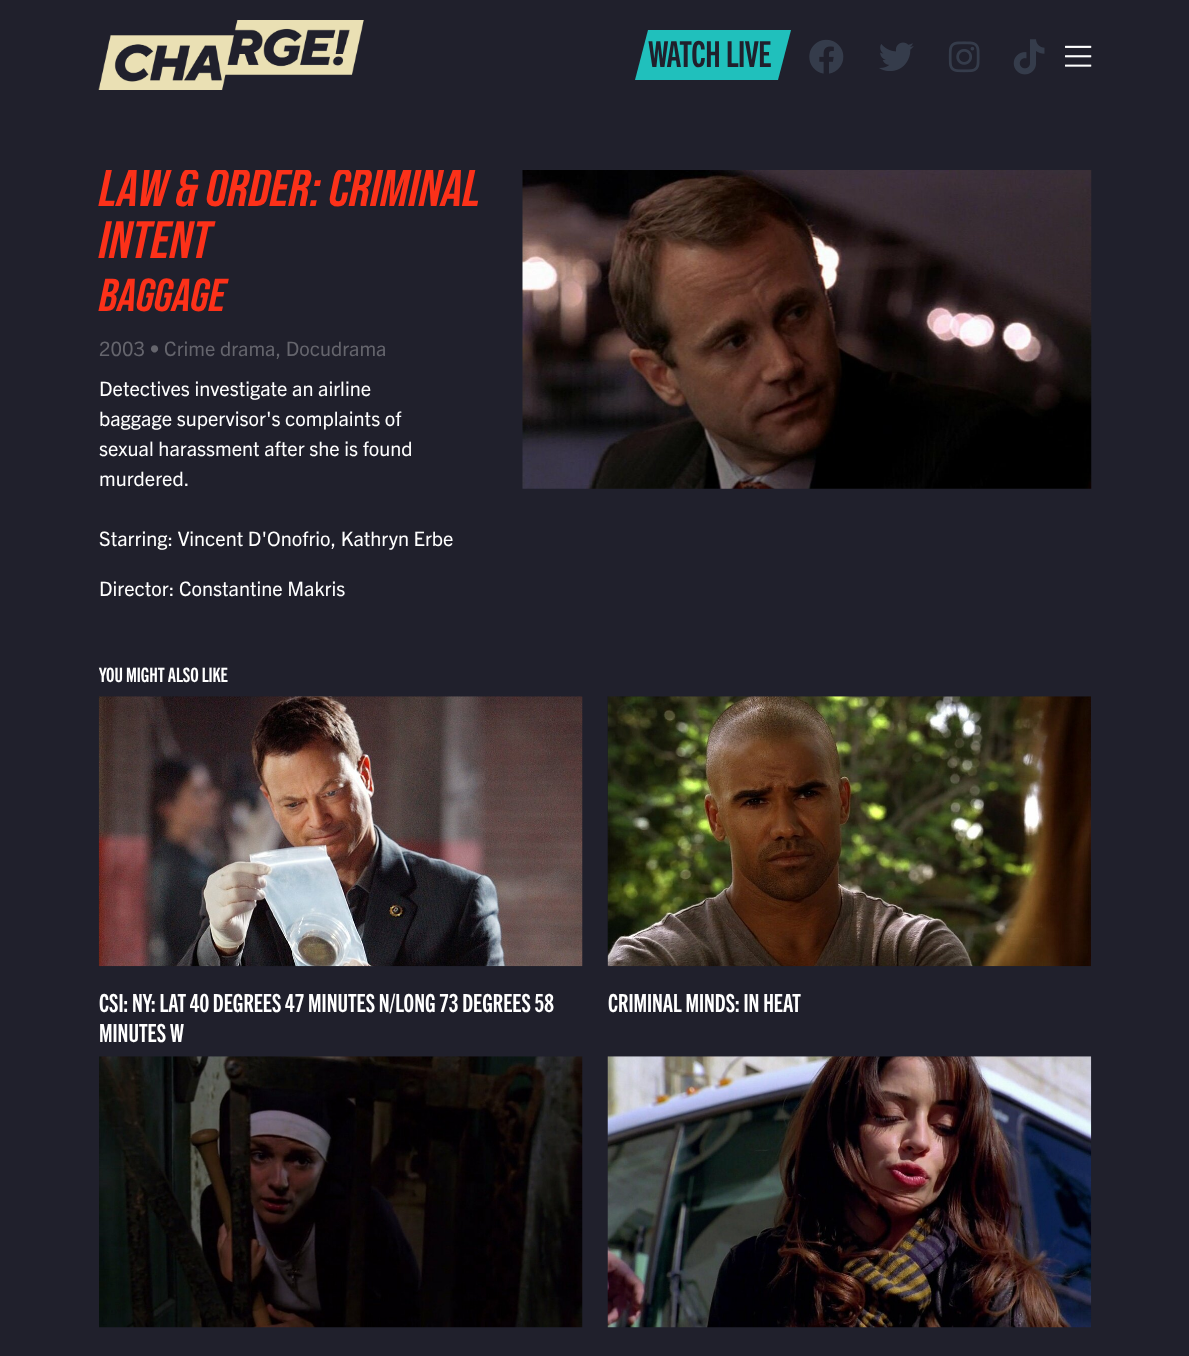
<!DOCTYPE html>
<meta charset="utf-8">
<style>body { margin: 0 } canvas { display: block }</style>
<canvas id="canvas" width="1189" height="1356"></canvas>
<img id="img1" src="img_01.png" hidden>
<img id="img2" src="img_02.png" hidden>
<img id="img3" src="img_03.png" hidden>
<img id="img4" src="img_04.png" hidden>
<img id="img5" src="img_05.png" hidden>
<img id="img6" src="img_06.png" hidden>
<img id="img7" src="img_07.png" hidden>
<img id="img8" src="img_08.png" hidden>
<img id="img9" src="img_09.png" hidden>
<img id="img10" src="img_10.png" hidden>
<img id="img11" src="img_11.png" hidden>
<script>
window.onload = function () {
	const canvas = document.getElementById("canvas");
	const ctx = canvas.getContext("2d");
	ctx.miterLimit = 4;
	ctx.fontKerning = "normal";
	function txt(s, x, y) {
		ctx.fillText(s, x, y);
	}
	function fill(x, y, w, h) {
		ctx.fillRect(x, y, w, h);
	}
	function img(id, x, y, w, h) {
		ctx.drawImage(document.getElementById(id), x, y, w, h);
	}

	ctx.fillStyle = "#20202C";
	fill(0, 0, 1189, 1356);
	img("img1", 98, 20, 266, 70);
	ctx.fillStyle = "#20C0BC";
	ctx.beginPath();
	ctx.moveTo(648, 30);
	ctx.lineTo(791, 30);
	ctx.lineTo(778, 80);
	ctx.lineTo(635, 80);
	ctx.closePath();
	ctx.fill();
	img("img2", 809, 39, 35, 35);
	img("img3", 879, 42, 35, 29);
	img("img4", 948, 41, 32, 32);
	img("img5", 1013, 39, 32, 36);
	img("img6", 1065, 45, 27, 22);
	img("img7", 522, 170, 570, 319);
	img("img8", 98, 696, 485, 271);
	img("img9", 607, 696, 484, 271);
	img("img10", 99, 1056, 484, 272);
	img("img11", 607, 1056, 485, 272);
	ctx.letterSpacing = "-0.5px";
	ctx.font = "bold 36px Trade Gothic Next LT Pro";
	ctx.fillStyle = "#20202C";
	txt("WATCH", 648, 67);
	txt("LIVE", 726, 67);
	ctx.save();
	ctx.beginPath();
	ctx.rect(0, 170, 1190, 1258);
	ctx.clip();
	ctx.letterSpacing = "0px";
	ctx.font = "italic bold 52.5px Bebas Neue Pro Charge";
	ctx.fillStyle = "#FC3119";
	txt("LAW & ORDER: CRIMINAL", 99, 206);
	ctx.restore();
	ctx.letterSpacing = "0px";
	ctx.font = "italic bold 52.5px Bebas Neue Pro Charge";
	ctx.fillStyle = "#FC3119";
	txt("INTENT", 99, 258);
	ctx.font = "italic bold 46px Bebas Neue Pro Charge";
	txt("BAGGAGE", 99, 311);
	ctx.font = "20px Trade Gothic Next LT Pro";
	ctx.fillStyle = "#65656D";
	txt("2003 • Crime drama, Docudrama", 99, 356);
	ctx.fillStyle = "#FFFFFF";
	txt("Detectives investigate an airline", 99, 396);
	txt("baggage supervisor's complaints of", 99, 426);
	txt("sexual harassment after she is found", 99, 456);
	txt("murdered.", 99, 486);
	txt("Starring: Vincent D'Onofrio, Kathryn Erbe", 99, 546);
	txt("Director: Constantine Makris", 99, 596);
	ctx.font = "bold 20px Trade Gothic Next LT Pro";
	txt("YOU MIGHT ALSO LIKE", 99, 682);
	ctx.font = "bold 25px Trade Gothic Next LT Pro";
	txt("CSI: NY: LAT 40 DEGREES 47 MINUTES N/LONG 73 DEGREES 58", 99, 1012);
	txt("MINUTES W", 99, 1042);
	txt("CRIMINAL MINDS: IN HEAT", 608, 1012);
};
</script>
